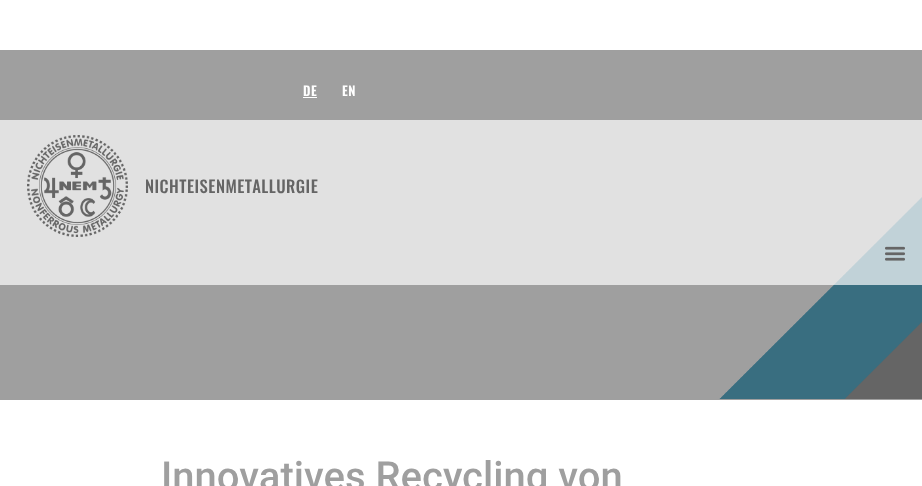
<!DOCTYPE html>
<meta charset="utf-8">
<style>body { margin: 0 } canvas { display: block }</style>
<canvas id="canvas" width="922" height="486"></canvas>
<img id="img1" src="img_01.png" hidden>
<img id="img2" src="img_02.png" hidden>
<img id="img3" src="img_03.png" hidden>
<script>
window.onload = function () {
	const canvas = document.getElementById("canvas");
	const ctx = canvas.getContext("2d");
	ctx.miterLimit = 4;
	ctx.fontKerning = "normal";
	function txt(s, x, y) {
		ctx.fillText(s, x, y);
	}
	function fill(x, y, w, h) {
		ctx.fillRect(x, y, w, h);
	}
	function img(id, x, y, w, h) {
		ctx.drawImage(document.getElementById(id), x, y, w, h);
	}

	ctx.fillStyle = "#FFFFFF";
	fill(0, 0, 922, 486);
	ctx.fillStyle = "#9F9F9F";
	fill(0, 50, 922, 350);
	img("img1", 719, 197, 203, 202);
	ctx.fillStyle = "#FFFFFF";
	fill(303, 97, 14, 1);
	ctx.fillStyle = "rgba(255, 255, 255, 0.69)";
	fill(0, 120, 922, 165);
	img("img2", 27, 135, 101, 102);
	img("img3", 885, 246, 20, 15);
	ctx.letterSpacing = "0.5px";
	ctx.font = "600 13px Oswald";
	ctx.fillStyle = "#FFFFFF";
	txt("DE", 303, 96);
	txt("EN", 342, 96);
	ctx.font = "500 16.6px Oswald";
	ctx.fillStyle = "#656565";
	txt("NICHTEISENMETALLURGIE", 145, 193);
	ctx.letterSpacing = "0px";
	ctx.font = "500 40px Roboto";
	ctx.fillStyle = "#9F9F9F";
	txt("Innovatives Recycling von", 161, 490);
};
</script>
